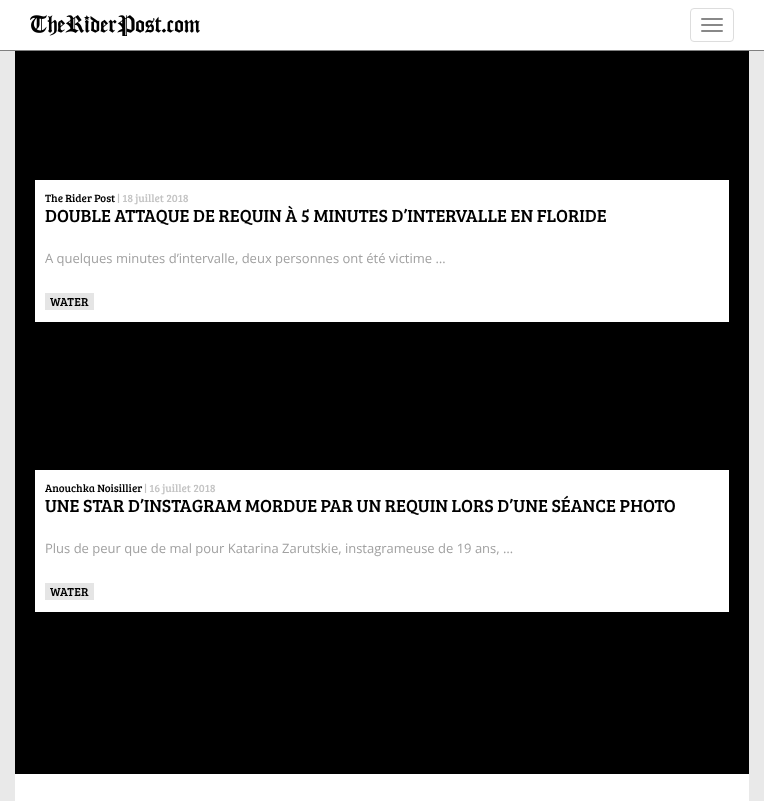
<!DOCTYPE html>
<meta charset="utf-8">
<style>body { margin: 0 } canvas { display: block }</style>
<canvas id="canvas" width="764" height="801"></canvas>
<img id="img1" src="img_01.png" hidden>
<script>
window.onload = function () {
	const canvas = document.getElementById("canvas");
	const ctx = canvas.getContext("2d");
	ctx.miterLimit = 4;
	ctx.fontKerning = "normal";
	function txt(s, x, y) {
		ctx.fillText(s, x, y);
	}
	function fill(x, y, w, h) {
		ctx.fillRect(x, y, w, h);
	}
	function round(x, y, w, h, r) {
		ctx.beginPath();
		ctx.roundRect(x, y, w, h, r);
		ctx.fill();
	}
	function img(id, x, y, w, h) {
		ctx.drawImage(document.getElementById(id), x, y, w, h);
	}

	ctx.fillStyle = "#E9E9E9";
	fill(0, 0, 764, 801);
	ctx.fillStyle = "#FFFFFF";
	fill(0, 0, 764, 50);
	ctx.fillStyle = "#808080";
	fill(0, 50, 764, 1);
	img("img1", 30, 15, 170, 21);
	ctx.beginPath();
	ctx.roundRect(690.5, 8.5, 43, 33, 3.5);
	ctx.strokeStyle = "#DDDDDD";
	ctx.stroke();
	ctx.fillStyle = "#888888";
	round(701, 18, 22, 2, 1);
	round(701, 24, 22, 2, 1);
	round(701, 30, 22, 2, 1);
	ctx.fillStyle = "#000000";
	fill(15, 51, 734, 723);
	ctx.fillStyle = "#FFFFFF";
	fill(35, 180, 694, 142);
	ctx.fillStyle = "#E5E5E5";
	fill(45, 293, 49, 17);
	ctx.fillStyle = "#FFFFFF";
	fill(35, 470, 694, 142);
	ctx.fillStyle = "#E5E5E5";
	fill(45, 583, 49, 17);
	ctx.fillStyle = "#FFFFFF";
	fill(15, 774, 734, 27);
	ctx.font = "11px Bree Serif";
	ctx.fillStyle = "#000000";
	txt("The Rider Post", 45, 202);
	ctx.fillStyle = "#C4C4C4";
	txt("| 18 juillet 2018", 117, 202);
	ctx.font = "18px Bree Serif";
	ctx.fillStyle = "#000000";
	txt("DOUBLE ATTAQUE DE REQUIN À 5 MINUTES D’INTERVALLE EN FLORIDE", 45, 222);
	ctx.font = "13px Open Sans";
	ctx.fillStyle = "#A1A1A1";
	txt("A quelques minutes d’intervalle, deux personnes ont été victime …", 45, 263);
	ctx.letterSpacing = "0.25px";
	ctx.font = "12px Bree Serif";
	ctx.fillStyle = "#000000";
	txt("WATER", 50, 306);
	ctx.letterSpacing = "0px";
	ctx.font = "11px Bree Serif";
	txt("Anouchka Noisillier", 45, 492);
	ctx.fillStyle = "#C4C4C4";
	txt("| 16 juillet 2018", 144, 492);
	ctx.font = "18px Bree Serif";
	ctx.fillStyle = "#000000";
	txt("UNE STAR D’INSTAGRAM MORDUE PAR UN REQUIN LORS D’UNE SÉANCE PHOTO", 45, 512);
	ctx.font = "13px Open Sans";
	ctx.fillStyle = "#A1A1A1";
	txt("Plus de peur que de mal pour Katarina Zarutskie, instagrameuse de 19 ans, …", 45, 553);
	ctx.letterSpacing = "0.25px";
	ctx.font = "12px Bree Serif";
	ctx.fillStyle = "#000000";
	txt("WATER", 50, 596);
};
</script>
